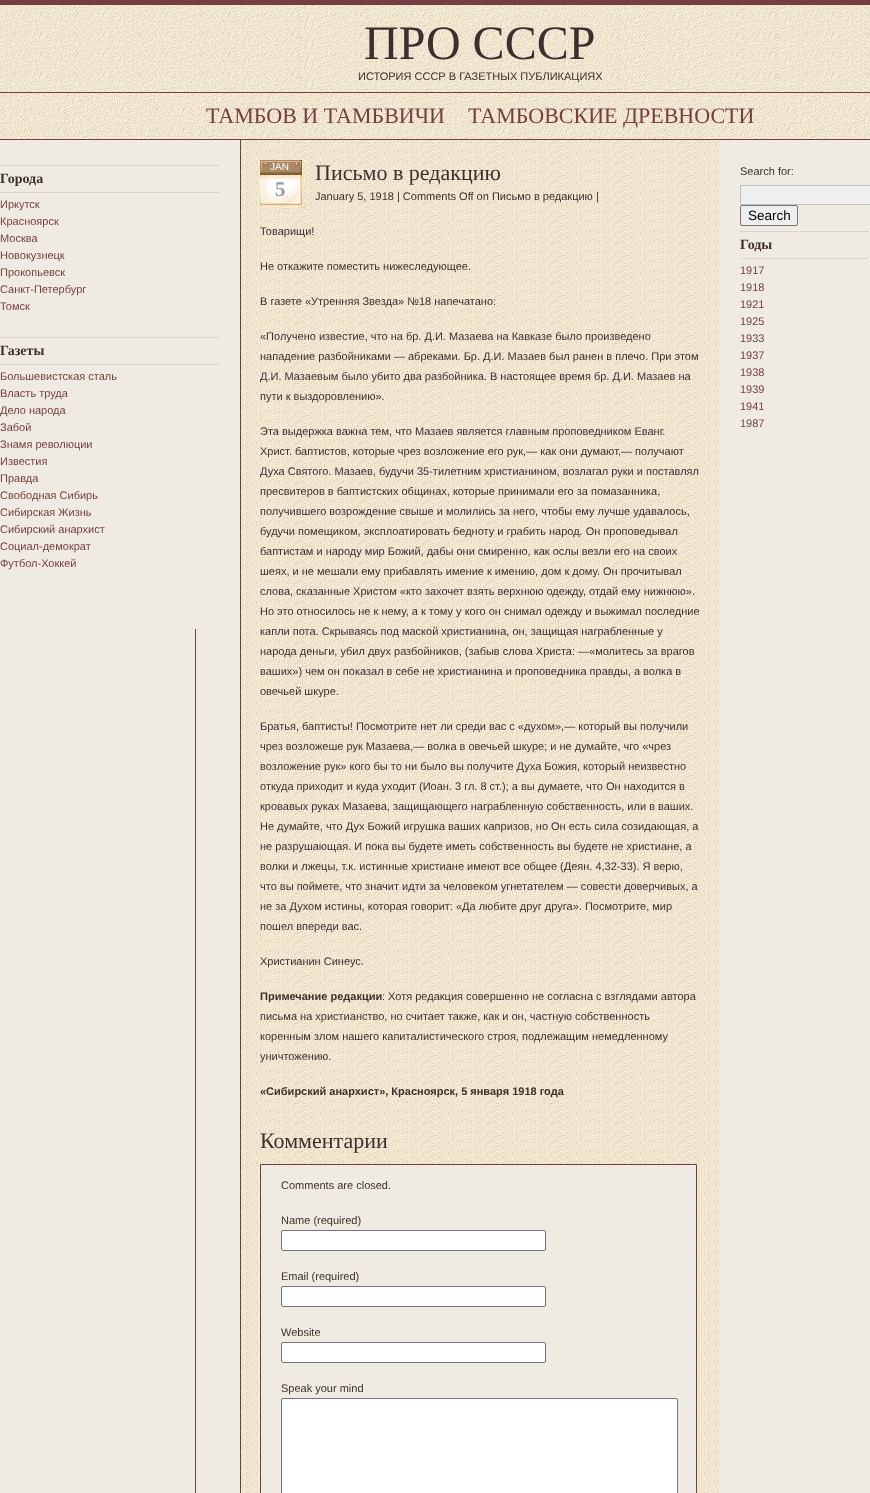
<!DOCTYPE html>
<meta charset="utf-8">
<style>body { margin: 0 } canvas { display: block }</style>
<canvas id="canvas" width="870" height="1493"></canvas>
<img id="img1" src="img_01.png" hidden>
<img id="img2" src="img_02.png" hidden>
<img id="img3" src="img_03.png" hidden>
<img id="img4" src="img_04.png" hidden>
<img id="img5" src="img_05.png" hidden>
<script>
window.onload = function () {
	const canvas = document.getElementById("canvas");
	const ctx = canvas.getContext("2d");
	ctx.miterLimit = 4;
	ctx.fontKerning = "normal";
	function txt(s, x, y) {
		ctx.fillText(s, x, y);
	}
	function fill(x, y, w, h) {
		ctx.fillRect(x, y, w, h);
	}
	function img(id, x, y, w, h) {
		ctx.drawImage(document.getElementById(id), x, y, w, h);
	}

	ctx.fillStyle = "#FFFFFF";
	fill(0, 0, 870, 1493);
	img("img1", 0, 93, 870, 46);
	img("img2", 0, 5, 870, 87);
	ctx.fillStyle = "#763E3E";
	fill(0, 0, 870, 5);
	fill(0, 92, 870, 1);
	fill(0, 139, 870, 1);
	ctx.fillStyle = "#EFEBE2";
	fill(0, 140, 870, 1353);
	img("img3", 195, 140, 45, 1353);
	fill(195, 140, 12, 489);
	ctx.beginPath();
	ctx.moveTo(0, 165.5);
	ctx.lineTo(220, 165.5);
	ctx.strokeStyle = "#C0C0C0";
	ctx.setLineDash([1, 1]);
	ctx.stroke();
	ctx.beginPath();
	ctx.moveTo(0, 192.5);
	ctx.lineTo(220, 192.5);
	ctx.stroke();
	ctx.beginPath();
	ctx.moveTo(0, 337.5);
	ctx.lineTo(220, 337.5);
	ctx.stroke();
	ctx.beginPath();
	ctx.moveTo(0, 364.5);
	ctx.lineTo(220, 364.5);
	ctx.stroke();
	img("img4", 241, 140, 478, 1353);
	ctx.fillStyle = "#763E3E";
	fill(240, 140, 1, 1353);
	img("img5", 260, 160, 45, 50);
	ctx.fillStyle = "#EFEBE2";
	ctx.beginPath();
	ctx.rect(260.5, 1164.5, 436, 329);
	ctx.fill();
	ctx.strokeStyle = "#763E3E";
	ctx.setLineDash([]);
	ctx.stroke();
	ctx.fillStyle = "#FFFFFF";
	ctx.beginPath();
	ctx.roundRect(281.5, 1230.5, 264, 20, 1.5);
	ctx.fill();
	ctx.strokeStyle = "#767676";
	ctx.stroke();
	ctx.beginPath();
	ctx.roundRect(281.5, 1286.5, 264, 20, 1.5);
	ctx.fill();
	ctx.stroke();
	ctx.beginPath();
	ctx.roundRect(281.5, 1342.5, 264, 20, 1.5);
	ctx.fill();
	ctx.stroke();
	ctx.beginPath();
	ctx.roundRect(281.5, 1398.5, 396, 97, 1.5);
	ctx.fill();
	ctx.stroke();
	ctx.fillStyle = "#EFEFEF";
	ctx.beginPath();
	ctx.rect(740.5, 185.5, 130, 19);
	ctx.fill();
	ctx.strokeStyle = "#C0C0C0";
	ctx.stroke();
	ctx.beginPath();
	ctx.roundRect(740.5, 205.5, 57, 20, 1.5);
	ctx.fill();
	ctx.strokeStyle = "#767676";
	ctx.stroke();
	ctx.beginPath();
	ctx.moveTo(740, 231.5);
	ctx.lineTo(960, 231.5);
	ctx.strokeStyle = "#C0C0C0";
	ctx.setLineDash([1, 1]);
	ctx.stroke();
	ctx.beginPath();
	ctx.moveTo(740, 258.5);
	ctx.lineTo(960, 258.5);
	ctx.stroke();
	ctx.font = "48px Liberation Serif";
	ctx.fillStyle = "#3D2F2F";
	txt("ПРО СССР", 364, 59);
	ctx.font = "11px Liberation Sans";
	txt("ИСТОРИЯ СССР В ГАЗЕТНЫХ ПУБЛИКАЦИЯХ", 358, 80);
	ctx.font = "22px Liberation Serif";
	ctx.fillStyle = "#763E3E";
	txt("ТАМБОВ И ТАМБВИЧИ", 206, 123);
	txt("ТАМБОВСКИЕ ДРЕВНОСТИ", 468, 123);
	ctx.font = "bold 14px Liberation Serif";
	ctx.fillStyle = "#3D2F2F";
	txt("Города", 0, 183);
	ctx.font = "11px Liberation Sans";
	ctx.fillStyle = "#763E3E";
	txt("Иркутск", 0, 208);
	txt("Красноярск", 0, 225);
	txt("Москва", 0, 242);
	txt("Новокузнецк", 0, 259);
	txt("Прокопьевск", 0, 276);
	txt("Санкт-Петербург", 0, 293);
	txt("Томск", 0, 310);
	ctx.font = "bold 14px Liberation Serif";
	ctx.fillStyle = "#3D2F2F";
	txt("Газеты", 0, 355);
	ctx.font = "11px Liberation Sans";
	ctx.fillStyle = "#763E3E";
	txt("Большевистская сталь", 0, 380);
	txt("Власть труда", 0, 397);
	txt("Дело народа", 0, 414);
	txt("Забой", 0, 431);
	txt("Знамя революции", 0, 448);
	txt("Известия", 0, 465);
	txt("Правда", 0, 482);
	txt("Свободная Сибирь", 0, 499);
	txt("Сибирская Жизнь", 0, 516);
	txt("Сибирский анархист", 0, 533);
	txt("Социал-демократ", 0, 550);
	txt("Футбол-Хоккей", 0, 567);
	ctx.font = "10px Liberation Sans";
	ctx.fillStyle = "#FFFFFF";
	txt("JAN", 270, 170);
	ctx.font = "bold 21px Liberation Serif";
	ctx.fillStyle = "#999999";
	txt("5", 275, 196);
	ctx.font = "22px Liberation Serif";
	ctx.fillStyle = "#3D2F2F";
	txt("Письмо в редакцию", 315, 180);
	ctx.font = "11px Liberation Sans";
	txt("January 5, 1918 | Comments Off on Письмо в редакцию |", 315, 200);
	txt("Товарищи!", 260, 235);
	txt("Не откажите поместить нижеследующее.", 260, 270);
	txt("В газете «Утренняя Звезда» №18 напечатано:", 260, 305);
	txt("«Получено известие, что на бр. Д.И. Мазаева на Кавказе было произведено", 260, 340);
	txt("нападение разбойниками — абреками. Бр. Д.И. Мазаев был ранен в плечо. При этом", 260, 360);
	txt("Д.И. Мазаевым было убито два разбойника. В настоящее время бр. Д.И. Мазаев на", 260, 380);
	txt("пути к выздоровлению».", 260, 400);
	txt("Эта выдержка важна тем, что Мазаев является главным проповедником Еванг.", 260, 435);
	txt("Христ. баптистов, которые чрез возложение его рук,— как они думают,— получают", 260, 455);
	txt("Духа Святого. Мазаев, будучи 35-тилетним христианином, возлагал руки и поставлял", 260, 475);
	txt("пресвитеров в баптистских общинах, которые принимали его за помазанника,", 260, 495);
	txt("получившего возрождение свыше и молились за него, чтобы ему лучше удавалось,", 260, 515);
	txt("будучи помещиком, эксплоатировать бедноту и грабить народ. Он проповедывал", 260, 535);
	txt("баптистам и народу мир Божий, дабы они смиренно, как ослы везли его на своих", 260, 555);
	txt("шеях, и не мешали ему прибавлять имение к имению, дом к дому. Он прочитывал", 260, 575);
	txt("слова, сказанные Христом «кто захочет взять верхнюю одежду, отдай ему нижнюю».", 260, 595);
	txt("Но это относилось не к нему, а к тому у кого он снимал одежду и выжимал последние", 260, 615);
	txt("капли пота. Скрываясь под маской христианина, он, защищая награбленные у", 260, 635);
	txt("народа деньги, убил двух разбойников, (забыв слова Христа: —«молитесь за врагов", 260, 655);
	txt("ваших») чем он показал в себе не христианина и проповедника правды, а волка в", 260, 675);
	txt("овечьей шкуре.", 260, 695);
	txt("Братья, баптисты! Посмотрите нет ли среди вас с «духом»,— который вы получили", 260, 730);
	txt("чрез возложеше рук Мазаева,— волка в овечьей шкуре; и не думайте, чго «чрез", 260, 750);
	txt("возложение рук» кого бы то ни было вы получите Духа Божия, который неизвестно", 260, 770);
	txt("откуда приходит и куда уходит (Иоан. 3 гл. 8 ст.); а вы думаете, что Он находится в", 260, 790);
	txt("кровавых руках Мазаева, защищающего награбленную собственность, или в ваших.", 260, 810);
	txt("Не думайте, что Дух Божий игрушка ваших капризов, но Он есть сила созидающая, а", 260, 830);
	txt("не разрушающая. И пока вы будете иметь собственность вы будете не христиане, а", 260, 850);
	txt("волки и лжецы, т.к. истинные христиане имеют все общее (Деян. 4,32-33). Я верю,", 260, 870);
	txt("что вы поймете, что значит идти за человеком угнетателем — совести доверчивых, а", 260, 890);
	txt("не за Духом истины, которая говорит: «Да любите друг друга». Посмотрите, мир", 260, 910);
	txt("пошел впереди вас.", 260, 930);
	txt("Христианин Синеус.", 260, 965);
	ctx.font = "bold 11px Liberation Sans";
	txt("Примечание редакции", 260, 1000);
	ctx.font = "11px Liberation Sans";
	txt(": Хотя редакция совершенно не согласна с взглядами автора", 382, 1000);
	txt("письма на христианство, но считает также, как и он, частную собственность", 260, 1020);
	txt("коренным злом нашего капиталистического строя, подлежащим немедленному", 260, 1040);
	txt("уничтожению.", 260, 1060);
	ctx.font = "bold 11px Liberation Sans";
	txt("«Сибирский анархист», Красноярск, 5 января 1918 года", 260, 1095);
	ctx.font = "22px Liberation Serif";
	txt("Комментарии", 260, 1148);
	ctx.font = "11px Liberation Sans";
	txt("Comments are closed.", 281, 1189);
	txt("Name (required)", 281, 1224);
	txt("Email (required)", 281, 1280);
	txt("Website", 281, 1336);
	txt("Speak your mind", 281, 1392);
	txt("Search for:", 740, 175);
	ctx.font = "13.5px Liberation Sans";
	ctx.fillStyle = "#000000";
	txt("Search", 748, 220);
	ctx.font = "bold 14px Liberation Serif";
	ctx.fillStyle = "#3D2F2F";
	txt("Годы", 740, 249);
	ctx.font = "11px Liberation Sans";
	ctx.fillStyle = "#763E3E";
	txt("1917", 740, 274);
	txt("1918", 740, 291);
	txt("1921", 740, 308);
	txt("1925", 740, 325);
	txt("1933", 740, 342);
	txt("1937", 740, 359);
	txt("1938", 740, 376);
	txt("1939", 740, 393);
	txt("1941", 740, 410);
	txt("1987", 740, 427);
};
</script>
